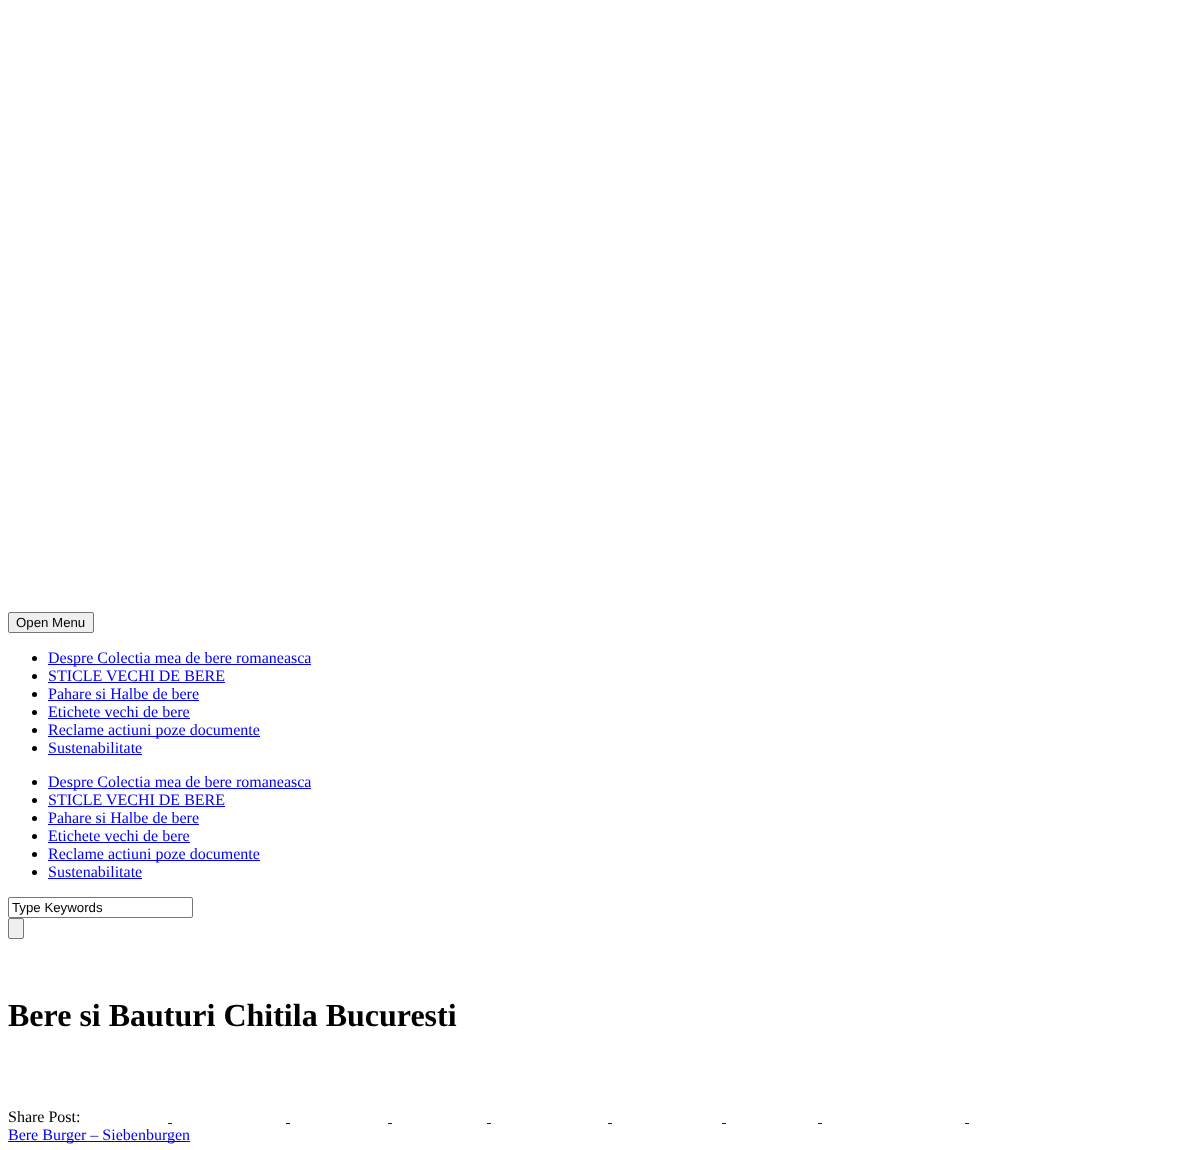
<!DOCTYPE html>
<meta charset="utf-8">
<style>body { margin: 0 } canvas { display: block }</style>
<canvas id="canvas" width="1180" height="1150"></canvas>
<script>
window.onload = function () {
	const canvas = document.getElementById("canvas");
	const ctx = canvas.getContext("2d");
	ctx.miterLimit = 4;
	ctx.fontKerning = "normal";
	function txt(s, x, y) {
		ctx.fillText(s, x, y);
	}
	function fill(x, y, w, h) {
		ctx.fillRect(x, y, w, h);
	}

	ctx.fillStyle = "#FFFFFF";
	fill(0, 0, 1180, 1150);
	ctx.fillStyle = "#EFEFEF";
	ctx.beginPath();
	ctx.roundRect(8.5, 612.5, 85, 20, 1.5);
	ctx.fill();
	ctx.strokeStyle = "#767676";
	ctx.stroke();
	ctx.fillStyle = "#000000";
	ctx.beginPath();
	ctx.arc(34.5, 658.5, 2.5, 0, Math.PI * 2);
	ctx.fill();
	ctx.fillStyle = "#0000EE";
	fill(48, 664, 263, 1);
	ctx.fillStyle = "#000000";
	ctx.beginPath();
	ctx.arc(34.5, 676.5, 2.5, 0, Math.PI * 2);
	ctx.fill();
	ctx.fillStyle = "#0000EE";
	fill(48, 682, 177, 1);
	ctx.fillStyle = "#000000";
	ctx.beginPath();
	ctx.arc(34.5, 694.5, 2.5, 0, Math.PI * 2);
	ctx.fill();
	ctx.fillStyle = "#0000EE";
	fill(48, 700, 151, 1);
	ctx.fillStyle = "#000000";
	ctx.beginPath();
	ctx.arc(34.5, 712.5, 2.5, 0, Math.PI * 2);
	ctx.fill();
	ctx.fillStyle = "#0000EE";
	fill(48, 718, 142, 1);
	ctx.fillStyle = "#000000";
	ctx.beginPath();
	ctx.arc(34.5, 730.5, 2.5, 0, Math.PI * 2);
	ctx.fill();
	ctx.fillStyle = "#0000EE";
	fill(48, 736, 212, 1);
	ctx.fillStyle = "#000000";
	ctx.beginPath();
	ctx.arc(34.5, 748.5, 2.5, 0, Math.PI * 2);
	ctx.fill();
	ctx.fillStyle = "#0000EE";
	fill(48, 754, 94, 1);
	ctx.fillStyle = "#000000";
	ctx.beginPath();
	ctx.arc(34.5, 782.5, 2.5, 0, Math.PI * 2);
	ctx.fill();
	ctx.fillStyle = "#0000EE";
	fill(48, 788, 263, 1);
	ctx.fillStyle = "#000000";
	ctx.beginPath();
	ctx.arc(34.5, 800.5, 2.5, 0, Math.PI * 2);
	ctx.fill();
	ctx.fillStyle = "#0000EE";
	fill(48, 806, 177, 1);
	ctx.fillStyle = "#000000";
	ctx.beginPath();
	ctx.arc(34.5, 818.5, 2.5, 0, Math.PI * 2);
	ctx.fill();
	ctx.fillStyle = "#0000EE";
	fill(48, 824, 151, 1);
	ctx.fillStyle = "#000000";
	ctx.beginPath();
	ctx.arc(34.5, 836.5, 2.5, 0, Math.PI * 2);
	ctx.fill();
	ctx.fillStyle = "#0000EE";
	fill(48, 842, 142, 1);
	ctx.fillStyle = "#000000";
	ctx.beginPath();
	ctx.arc(34.5, 854.5, 2.5, 0, Math.PI * 2);
	ctx.fill();
	ctx.fillStyle = "#0000EE";
	fill(48, 860, 212, 1);
	ctx.fillStyle = "#000000";
	ctx.beginPath();
	ctx.arc(34.5, 872.5, 2.5, 0, Math.PI * 2);
	ctx.fill();
	ctx.fillStyle = "#0000EE";
	fill(48, 878, 94, 1);
	ctx.beginPath();
	ctx.roundRect(8.5, 897.5, 184, 20, 1.5);
	ctx.stroke();
	ctx.fillStyle = "#EFEFEF";
	ctx.beginPath();
	ctx.roundRect(8.5, 918.5, 15, 20, 1.5);
	ctx.fill();
	ctx.stroke();
	ctx.fillStyle = "#0000EE";
	fill(168, 1123, 4, 1);
	fill(286, 1123, 4, 1);
	fill(388, 1123, 4, 1);
	fill(487, 1123, 4, 1);
	fill(608, 1123, 4, 1);
	fill(722, 1123, 4, 1);
	fill(818, 1123, 4, 1);
	fill(965, 1123, 4, 1);
	fill(8, 1141, 182, 1);
	ctx.font = "13.25px Liberation Sans";
	ctx.fillStyle = "#000000";
	txt("Open Menu", 16, 627);
	ctx.font = "16px Liberation Serif";
	ctx.fillStyle = "#0000EE";
	txt("Despre Colectia mea de bere romaneasca", 48, 663);
	txt("STICLE VECHI DE BERE", 48, 681);
	txt("Pahare si Halbe de bere", 48, 699);
	txt("Etichete vechi de bere", 48, 717);
	txt("Reclame actiuni poze documente", 48, 735);
	txt("Sustenabilitate", 48, 753);
	txt("Despre Colectia mea de bere romaneasca", 48, 787);
	txt("STICLE VECHI DE BERE", 48, 805);
	txt("Pahare si Halbe de bere", 48, 823);
	txt("Etichete vechi de bere", 48, 841);
	txt("Reclame actiuni poze documente", 48, 859);
	txt("Sustenabilitate", 48, 877);
	ctx.font = "13.25px Liberation Sans";
	ctx.fillStyle = "#000000";
	txt("Type Keywords", 12, 912);
	ctx.font = "bold 32px Liberation Serif";
	txt("Bere si Bauturi Chitila Bucuresti", 8, 1026);
	ctx.font = "16px Liberation Serif";
	txt("Share Post:", 8, 1122);
	ctx.fillStyle = "#0000EE";
	txt("Bere Burger – Siebenburgen", 8, 1140);
};
</script>
